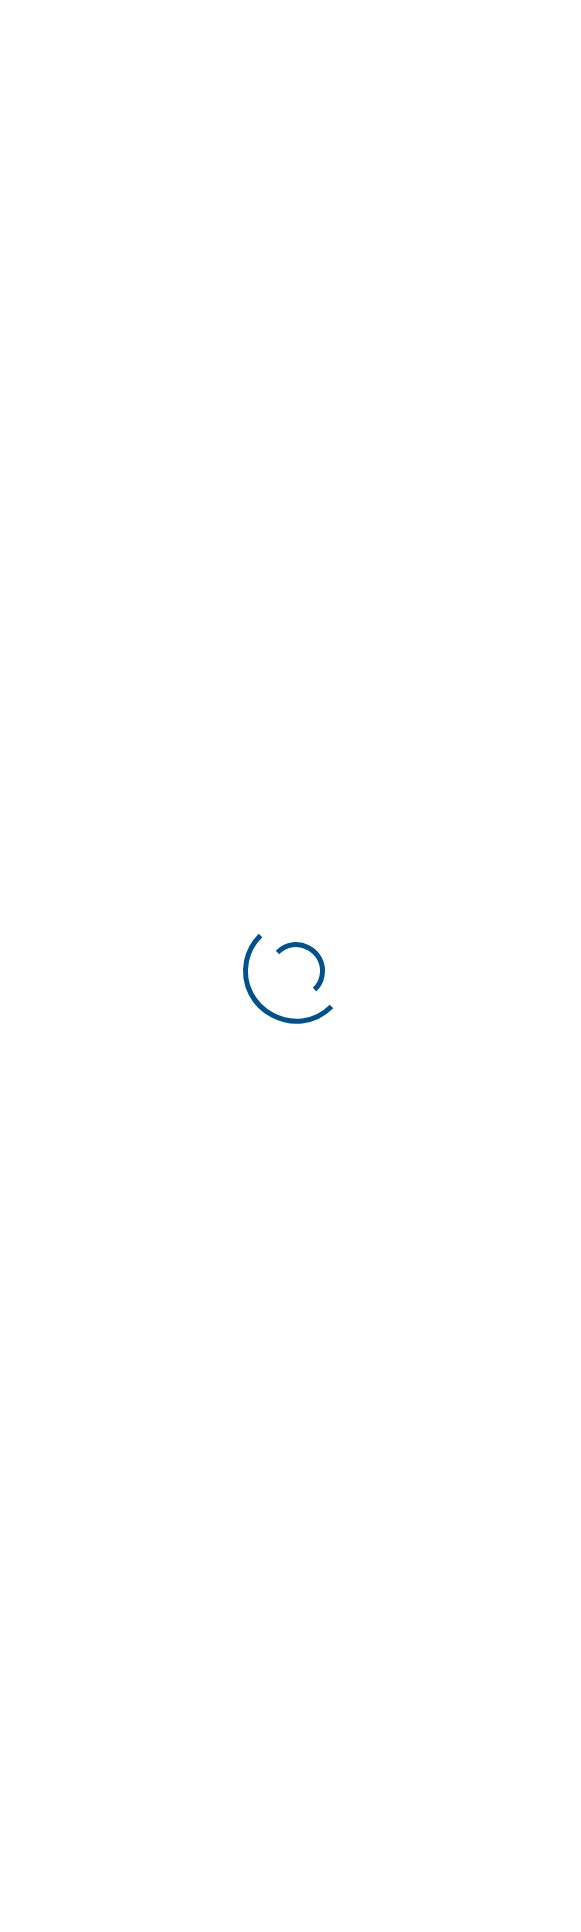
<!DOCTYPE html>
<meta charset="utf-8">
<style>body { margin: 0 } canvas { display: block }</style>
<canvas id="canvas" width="581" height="1932"></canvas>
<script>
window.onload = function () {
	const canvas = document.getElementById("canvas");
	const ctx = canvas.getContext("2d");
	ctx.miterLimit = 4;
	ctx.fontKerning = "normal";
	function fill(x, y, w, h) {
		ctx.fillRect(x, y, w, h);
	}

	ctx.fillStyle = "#FFFFFF";
	fill(0, 0, 581, 1932);
	ctx.beginPath();
	ctx.moveTo(277.5, 952.5);
	ctx.bezierCurveTo(295.5, 934, 327, 950.5, 322, 976);
	ctx.bezierCurveTo(321, 981.5, 318.5, 986, 314.5, 989.5);
	ctx.strokeStyle = "#00518D";
	ctx.lineWidth = 5;
	ctx.stroke();
	ctx.beginPath();
	ctx.moveTo(331.5, 1006.5);
	ctx.bezierCurveTo(296.5, 1041.5, 237, 1009.5, 246.5, 961);
	ctx.bezierCurveTo(248.5, 951.5, 253.5, 942.5, 260.5, 935.5);
	ctx.stroke();
};
</script>
